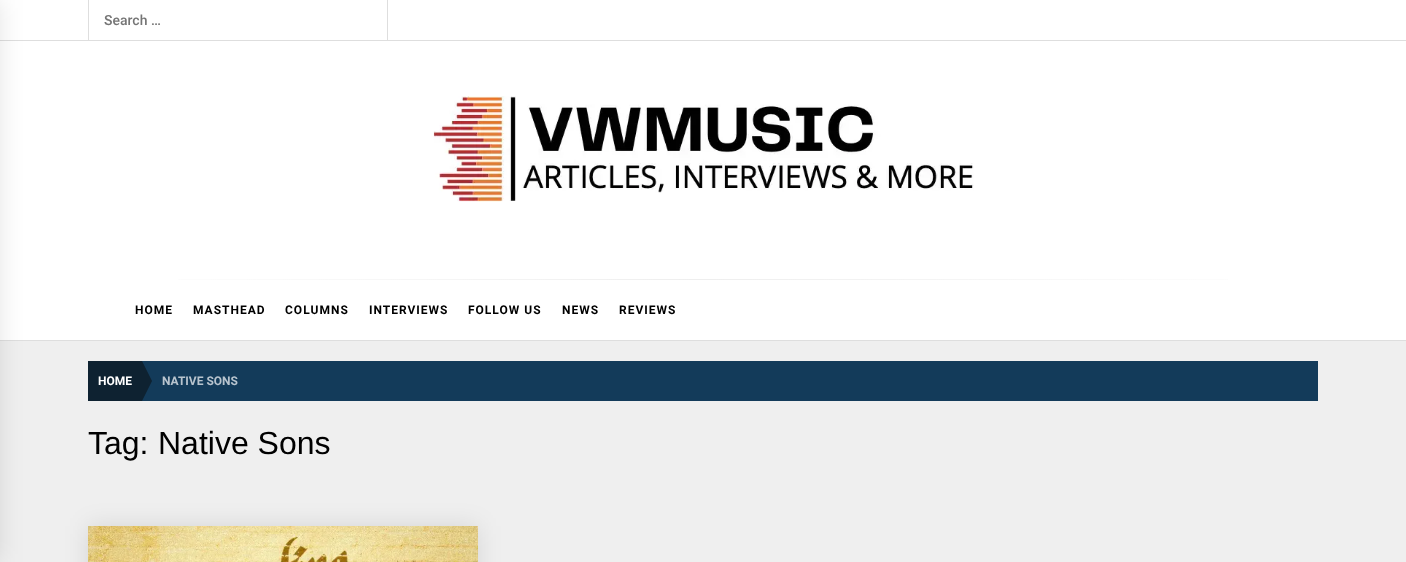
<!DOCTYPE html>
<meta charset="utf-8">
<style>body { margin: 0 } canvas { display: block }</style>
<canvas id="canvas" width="1406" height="562"></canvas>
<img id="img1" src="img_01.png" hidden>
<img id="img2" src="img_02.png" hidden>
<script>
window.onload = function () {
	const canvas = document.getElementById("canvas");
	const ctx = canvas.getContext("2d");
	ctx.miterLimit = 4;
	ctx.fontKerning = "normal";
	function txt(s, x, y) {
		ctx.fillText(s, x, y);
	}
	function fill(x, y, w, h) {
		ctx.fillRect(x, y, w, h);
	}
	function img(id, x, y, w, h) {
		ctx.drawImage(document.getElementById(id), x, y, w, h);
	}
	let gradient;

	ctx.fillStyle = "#EFEFEF";
	fill(0, 0, 1406, 562);
	ctx.fillStyle = "#FFFFFF";
	fill(0, 0, 1406, 340);
	ctx.fillStyle = "#DEDEDE";
	fill(0, 40, 1406, 1);
	fill(0, 340, 1406, 1);
	ctx.fillStyle = "rgba(0, 0, 0, 0.1)";
	ctx.filter = "blur(12.5px)";
	ctx.beginPath();
	ctx.rect(-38, 0, 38, 562);
	ctx.fill();
	ctx.filter = "none";
	ctx.fillStyle = "#DEDEDE";
	fill(387, 0, 1, 40);
	fill(88, 0, 1, 40);
	img("img1", 433, 96, 541, 106);
	gradient = ctx.createLinearGradient(1318, 280, 88, 279);
	gradient.addColorStop(0, "#FFFFFF");
	gradient.addColorStop(0.5, "#EEEEEE");
	gradient.addColorStop(1, "#FFFFFF");
	ctx.fillStyle = gradient;
	fill(178, 279, 1050, 1);
	ctx.fillStyle = "#133B5A";
	fill(142, 361, 1176, 40);
	ctx.fillStyle = "#0E2231";
	fill(88, 361, 54, 40);
	ctx.beginPath();
	ctx.moveTo(142, 401);
	ctx.lineTo(142, 361);
	ctx.lineTo(152, 381);
	ctx.closePath();
	ctx.fill();
	ctx.fillStyle = "rgba(0, 0, 0, 0.1)";
	ctx.filter = "blur(12.5px)";
	ctx.beginPath();
	ctx.rect(88, 526, 390, 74);
	ctx.fill();
	ctx.filter = "none";
	img("img2", 88, 526, 390, 36);
	ctx.font = "500 14px Roboto";
	ctx.fillStyle = "#757575";
	txt("Search …", 104, 25);
	ctx.letterSpacing = "1px";
	ctx.font = "bold 12px Roboto";
	ctx.fillStyle = "#000000";
	txt("HOME", 135, 314);
	txt("MASTHEAD", 193, 314);
	txt("COLUMNS", 285, 314);
	txt("INTERVIEWS", 369, 314);
	txt("FOLLOW US", 468, 314);
	txt("NEWS", 562, 314);
	txt("REVIEWS", 619, 314);
	ctx.letterSpacing = "0px";
	ctx.fillStyle = "#FFFFFF";
	txt("HOME", 98, 385);
	ctx.fillStyle = "#B8C4CE";
	txt("NATIVE SONS", 162, 385);
	ctx.font = "32px Liberation Sans";
	ctx.fillStyle = "#000000";
	txt("Tag:", 88, 454);
	txt("Native Sons", 158, 454);
};
</script>
